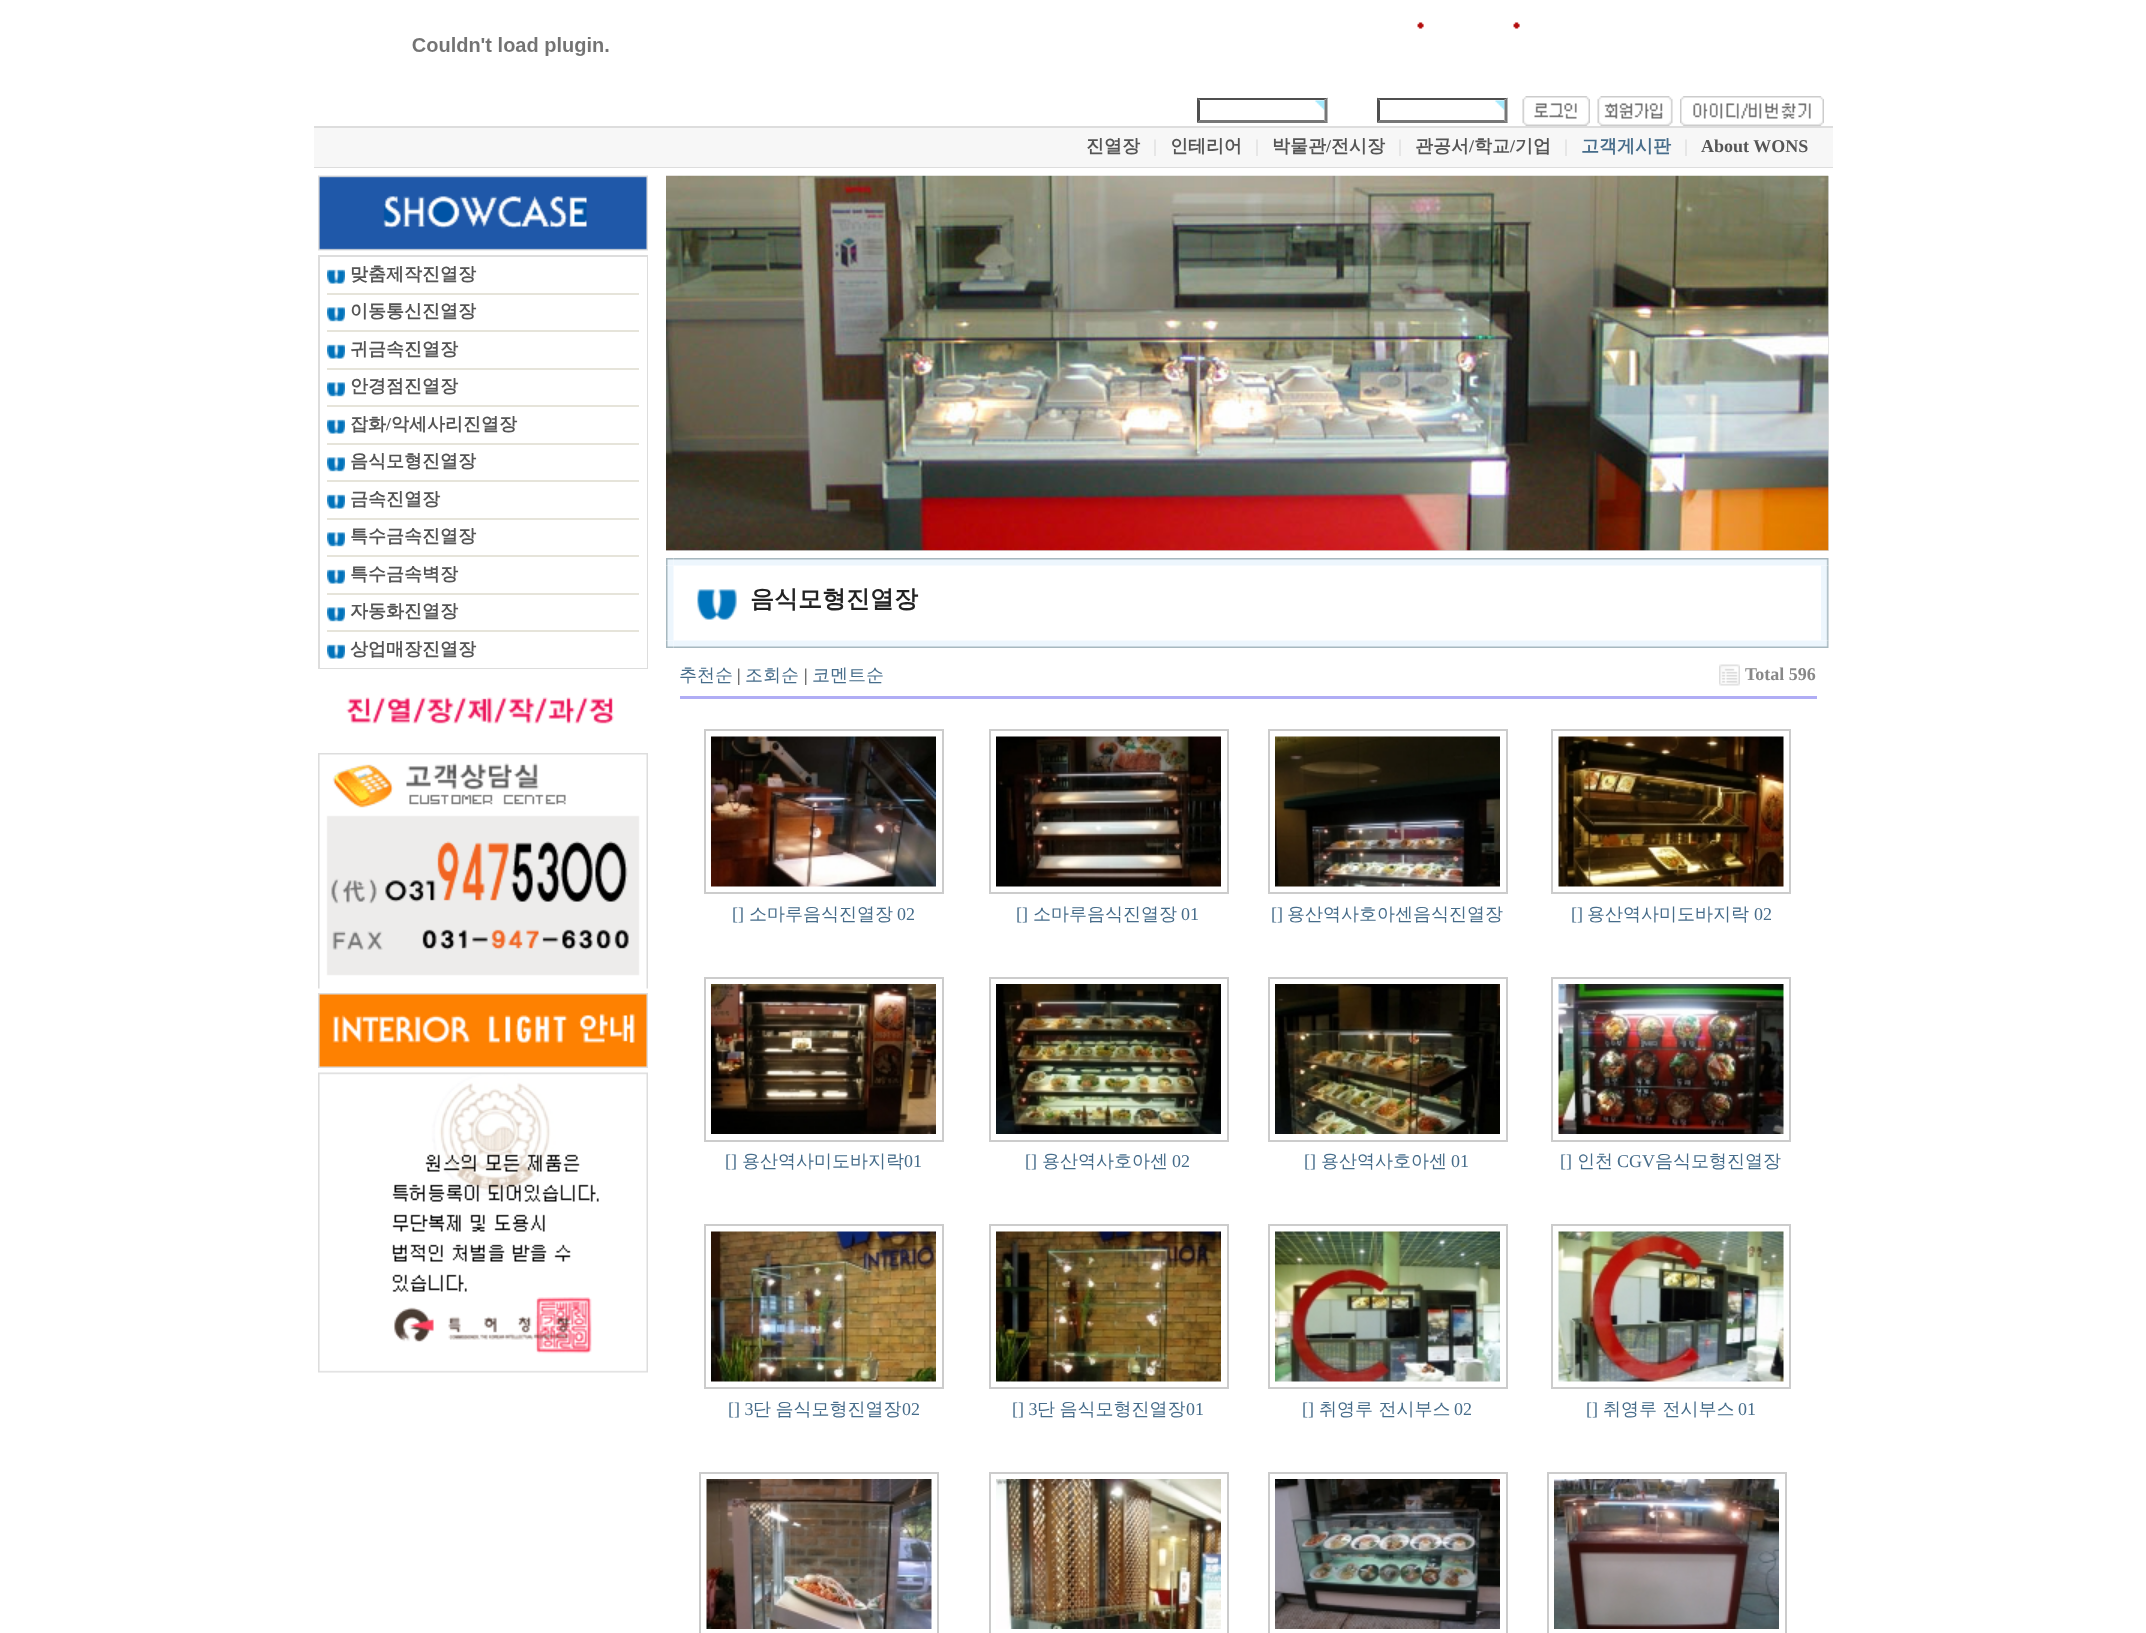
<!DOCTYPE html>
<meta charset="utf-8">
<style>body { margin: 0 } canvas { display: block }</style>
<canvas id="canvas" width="2146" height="1633"></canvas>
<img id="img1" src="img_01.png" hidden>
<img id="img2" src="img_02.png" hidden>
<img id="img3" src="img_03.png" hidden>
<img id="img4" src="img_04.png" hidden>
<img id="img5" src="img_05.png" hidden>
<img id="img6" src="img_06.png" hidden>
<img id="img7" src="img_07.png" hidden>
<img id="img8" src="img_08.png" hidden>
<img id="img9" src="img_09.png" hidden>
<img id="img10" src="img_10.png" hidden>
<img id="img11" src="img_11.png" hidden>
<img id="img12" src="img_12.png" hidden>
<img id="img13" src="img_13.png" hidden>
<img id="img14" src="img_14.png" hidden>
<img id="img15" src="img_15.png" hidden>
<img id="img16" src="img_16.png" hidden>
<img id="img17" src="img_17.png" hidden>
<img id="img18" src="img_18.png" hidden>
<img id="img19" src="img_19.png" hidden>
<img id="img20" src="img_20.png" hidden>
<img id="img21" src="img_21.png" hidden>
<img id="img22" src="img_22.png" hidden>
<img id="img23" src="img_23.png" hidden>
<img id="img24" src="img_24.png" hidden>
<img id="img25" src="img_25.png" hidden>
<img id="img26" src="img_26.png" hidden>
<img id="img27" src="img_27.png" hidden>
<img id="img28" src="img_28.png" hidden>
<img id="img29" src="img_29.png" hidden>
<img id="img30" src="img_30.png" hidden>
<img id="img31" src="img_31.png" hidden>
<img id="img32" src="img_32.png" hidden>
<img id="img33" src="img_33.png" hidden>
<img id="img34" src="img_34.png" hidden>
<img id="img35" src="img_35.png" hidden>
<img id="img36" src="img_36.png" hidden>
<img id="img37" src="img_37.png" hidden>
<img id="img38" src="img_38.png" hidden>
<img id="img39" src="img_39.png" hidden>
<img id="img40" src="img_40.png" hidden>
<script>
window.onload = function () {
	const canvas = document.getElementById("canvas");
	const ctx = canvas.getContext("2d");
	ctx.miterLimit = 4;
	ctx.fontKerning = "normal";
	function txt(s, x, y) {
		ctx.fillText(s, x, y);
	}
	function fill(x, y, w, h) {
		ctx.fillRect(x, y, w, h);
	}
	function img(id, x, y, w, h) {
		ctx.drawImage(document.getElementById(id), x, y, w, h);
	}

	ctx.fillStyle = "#FFFFFF";
	fill(0, 0, 2146, 1633);
	img("img1", 1417, 22, 7, 7);
	img("img1", 1513, 22, 7, 7);
	img("img2", 412, 37, 197, 19);
	img("img3", 1315, 100, 10, 10);
	ctx.fillStyle = "#4F4F4F";
	ctx.beginPath();
	ctx.moveTo(1197, 98);
	ctx.lineTo(1328, 98);
	ctx.lineTo(1324, 100);
	ctx.lineTo(1200, 100);
	ctx.closePath();
	ctx.fill();
	ctx.fillStyle = "#767676";
	ctx.beginPath();
	ctx.moveTo(1327.5, 97.5);
	ctx.lineTo(1327.5, 123);
	ctx.lineTo(1324.5, 120);
	ctx.lineTo(1324.5, 100.5);
	ctx.closePath();
	ctx.fill();
	ctx.beginPath();
	ctx.moveTo(1328, 123);
	ctx.lineTo(1197, 123);
	ctx.lineTo(1200, 120);
	ctx.lineTo(1324, 120);
	ctx.closePath();
	ctx.fill();
	ctx.fillStyle = "#4F4F4F";
	ctx.beginPath();
	ctx.moveTo(1197, 123);
	ctx.lineTo(1197, 97.5);
	ctx.lineTo(1200, 100.5);
	ctx.lineTo(1200, 120);
	ctx.closePath();
	ctx.fill();
	img("img3", 1495, 100, 10, 10);
	ctx.beginPath();
	ctx.moveTo(1377, 98);
	ctx.lineTo(1508, 98);
	ctx.lineTo(1504, 100);
	ctx.lineTo(1380, 100);
	ctx.closePath();
	ctx.fill();
	ctx.fillStyle = "#767676";
	ctx.beginPath();
	ctx.moveTo(1507.5, 97.5);
	ctx.lineTo(1507.5, 123);
	ctx.lineTo(1504.5, 120);
	ctx.lineTo(1504.5, 100.5);
	ctx.closePath();
	ctx.fill();
	ctx.beginPath();
	ctx.moveTo(1508, 123);
	ctx.lineTo(1377, 123);
	ctx.lineTo(1380, 120);
	ctx.lineTo(1504, 120);
	ctx.closePath();
	ctx.fill();
	ctx.fillStyle = "#4F4F4F";
	ctx.beginPath();
	ctx.moveTo(1377, 123);
	ctx.lineTo(1377, 97.5);
	ctx.lineTo(1380, 100.5);
	ctx.lineTo(1380, 120);
	ctx.closePath();
	ctx.fill();
	img("img4", 1522, 96, 68, 30);
	img("img5", 1597, 96, 76, 30);
	img("img6", 1680, 96, 144, 30);
	ctx.fillStyle = "#F7F7F7";
	fill(314, 128, 1519, 39);
	ctx.fillStyle = "#DDDDDD";
	fill(314, 126, 1519, 2);
	fill(314, 167, 1519, 1);
	img("img7", 318, 175, 330, 76);
	fill(318, 255, 330, 414);
	ctx.fillStyle = "#FFFFFF";
	fill(320, 257, 327, 411);
	img("img8", 327, 269, 18, 15);
	ctx.fillStyle = "#E6E4DA";
	fill(327, 293, 312, 2);
	img("img9", 327, 307, 18, 15);
	fill(327, 330, 312, 2);
	img("img8", 327, 344, 18, 15);
	fill(327, 368, 312, 2);
	img("img9", 327, 382, 18, 15);
	fill(327, 405, 312, 2);
	img("img8", 327, 419, 18, 15);
	fill(327, 443, 312, 2);
	img("img9", 327, 457, 18, 15);
	fill(327, 480, 312, 2);
	img("img8", 327, 494, 18, 15);
	fill(327, 518, 312, 2);
	img("img9", 327, 532, 18, 15);
	fill(327, 555, 312, 2);
	img("img8", 327, 569, 18, 15);
	fill(327, 593, 312, 2);
	img("img9", 327, 607, 18, 15);
	fill(327, 630, 312, 2);
	img("img8", 327, 644, 18, 15);
	img("img10", 346, 697, 268, 27);
	img("img11", 318, 753, 330, 236);
	img("img12", 318, 993, 330, 75);
	img("img13", 318, 1072, 330, 301);
	ctx.fillStyle = "#DDDDDD";
	fill(666, 176, 1163, 375);
	img("img14", 666, 175, 1163, 376);
	img("img15", 666, 558, 8, 8);
	img("img16", 673, 558, 1148, 8);
	img("img17", 1821, 558, 8, 8);
	img("img18", 666, 565, 8, 76);
	img("img19", 697, 589, 40, 31);
	img("img20", 1821, 565, 8, 76);
	img("img21", 666, 640, 8, 8);
	img("img22", 673, 640, 1148, 8);
	img("img23", 1821, 640, 8, 8);
	img("img24", 1719, 664, 21, 22);
	ctx.fillStyle = "#B0ADF5";
	fill(680, 696, 1137, 3);
	ctx.strokeStyle = "#CCCCCC";
	ctx.lineWidth = 2;
	ctx.strokeRect(705, 730, 238, 163);
	img("img25", 711, 736, 225, 151);
	ctx.strokeRect(990, 730, 238, 163);
	img("img26", 996, 736, 225, 151);
	ctx.strokeRect(1269, 730, 238, 163);
	img("img27", 1275, 736, 225, 151);
	ctx.strokeRect(1552, 730, 238, 163);
	img("img28", 1558, 736, 226, 151);
	ctx.strokeRect(705, 978, 238, 163);
	img("img29", 711, 984, 225, 150);
	ctx.strokeRect(990, 978, 238, 163);
	img("img30", 996, 984, 225, 150);
	ctx.strokeRect(1269, 978, 238, 163);
	img("img31", 1275, 984, 225, 150);
	ctx.strokeRect(1552, 978, 238, 163);
	img("img32", 1558, 984, 226, 150);
	ctx.strokeRect(705, 1225, 238, 163);
	img("img33", 711, 1231, 225, 151);
	ctx.strokeRect(990, 1225, 238, 163);
	img("img34", 996, 1231, 225, 151);
	ctx.strokeRect(1269, 1225, 238, 163);
	img("img35", 1275, 1231, 225, 151);
	ctx.strokeRect(1552, 1225, 238, 163);
	img("img36", 1558, 1231, 226, 151);
	ctx.strokeRect(700, 1473, 238, 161);
	img("img37", 706, 1479, 226, 150);
	ctx.strokeRect(990, 1473, 238, 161);
	img("img38", 996, 1479, 225, 150);
	ctx.strokeRect(1269, 1473, 238, 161);
	img("img39", 1275, 1479, 225, 150);
	ctx.strokeRect(1548, 1473, 238, 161);
	img("img40", 1554, 1479, 225, 150);
	ctx.font = "bold 18px WenQuanYi Zen Hei";
	ctx.fillStyle = "#555555";
	txt("진열장", 1086, 152);
	ctx.font = "bold 18px Liberation Serif";
	ctx.fillStyle = "#DDDDDD";
	txt("|", 1153, 152);
	ctx.font = "bold 18px WenQuanYi Zen Hei";
	ctx.fillStyle = "#555555";
	txt("인테리어", 1170, 152);
	ctx.font = "bold 18px Liberation Serif";
	ctx.fillStyle = "#DDDDDD";
	txt("|", 1255, 152);
	ctx.font = "bold 18px WenQuanYi Zen Hei";
	ctx.fillStyle = "#555555";
	txt("박물관", 1272, 152);
	ctx.font = "bold 18px Liberation Serif";
	txt("/", 1326, 152);
	ctx.font = "bold 18px WenQuanYi Zen Hei";
	txt("전시장", 1331, 152);
	ctx.font = "bold 18px Liberation Serif";
	ctx.fillStyle = "#DDDDDD";
	txt("|", 1398, 152);
	ctx.font = "bold 18px WenQuanYi Zen Hei";
	ctx.fillStyle = "#555555";
	txt("관공서", 1415, 152);
	ctx.font = "bold 18px Liberation Serif";
	txt("/", 1469, 152);
	ctx.font = "bold 18px WenQuanYi Zen Hei";
	txt("학교", 1474, 152);
	ctx.font = "bold 18px Liberation Serif";
	txt("/", 1510, 152);
	ctx.font = "bold 18px WenQuanYi Zen Hei";
	txt("기업", 1515, 152);
	ctx.font = "bold 18px Liberation Serif";
	ctx.fillStyle = "#DDDDDD";
	txt("|", 1564, 152);
	ctx.font = "bold 18px WenQuanYi Zen Hei";
	ctx.fillStyle = "#466C8A";
	txt("고객게시판", 1581, 152);
	ctx.font = "bold 18px Liberation Serif";
	ctx.fillStyle = "#DDDDDD";
	txt("|", 1684, 152);
	ctx.fillStyle = "#555555";
	txt("About WONS", 1701, 152);
	ctx.font = "bold 18px WenQuanYi Zen Hei";
	txt("맞춤제작진열장", 350, 280);
	txt("이동통신진열장", 350, 317);
	txt("귀금속진열장", 350, 355);
	txt("안경점진열장", 350, 392);
	txt("잡화", 350, 430);
	ctx.font = "bold 18px Liberation Serif";
	txt("/", 386, 430);
	ctx.font = "bold 18px WenQuanYi Zen Hei";
	txt("악세사리진열장", 391, 430);
	txt("음식모형진열장", 350, 467);
	txt("금속진열장", 350, 505);
	txt("특수금속진열장", 350, 542);
	txt("특수금속벽장", 350, 580);
	txt("자동화진열장", 350, 617);
	txt("상업매장진열장", 350, 655);
	ctx.font = "bold 24px WenQuanYi Zen Hei";
	ctx.fillStyle = "#222222";
	txt("음식모형진열장", 750, 607);
	ctx.font = "500 18px WenQuanYi Zen Hei";
	ctx.fillStyle = "#466C8A";
	txt("추천순", 679, 681);
	ctx.font = "18px Liberation Serif";
	ctx.fillStyle = "#222222";
	txt("|", 737, 681);
	ctx.font = "500 18px WenQuanYi Zen Hei";
	ctx.fillStyle = "#466C8A";
	txt("조회순", 745, 681);
	ctx.font = "18px Liberation Serif";
	ctx.fillStyle = "#222222";
	txt("|", 804, 681);
	ctx.font = "500 18px WenQuanYi Zen Hei";
	ctx.fillStyle = "#466C8A";
	txt("코멘트순", 812, 681);
	ctx.font = "bold 18px Liberation Serif";
	ctx.fillStyle = "#888888";
	txt("Total 596", 1745, 680);
	ctx.font = "18px Liberation Serif";
	ctx.fillStyle = "#466C8A";
	txt("[]", 732, 920);
	ctx.font = "500 18px WenQuanYi Zen Hei";
	txt("소마루음식진열장", 749, 920);
	ctx.font = "18px Liberation Serif";
	txt("02", 897, 920);
	txt("[]", 1016, 920);
	ctx.font = "500 18px WenQuanYi Zen Hei";
	txt("소마루음식진열장", 1033, 920);
	ctx.font = "18px Liberation Serif";
	txt("01", 1181, 920);
	txt("[]", 1271, 920);
	ctx.font = "500 18px WenQuanYi Zen Hei";
	txt("용산역사호아센음식진열장", 1287, 920);
	ctx.font = "18px Liberation Serif";
	txt("[]", 1571, 920);
	ctx.font = "500 18px WenQuanYi Zen Hei";
	txt("용산역사미도바지락", 1587, 920);
	ctx.font = "18px Liberation Serif";
	txt("02", 1754, 920);
	txt("[]", 725, 1167);
	ctx.font = "500 18px WenQuanYi Zen Hei";
	txt("용산역사미도바지락", 742, 1167);
	ctx.font = "18px Liberation Serif";
	txt("01", 904, 1167);
	txt("[]", 1025, 1167);
	ctx.font = "500 18px WenQuanYi Zen Hei";
	txt("용산역사호아센", 1042, 1167);
	ctx.font = "18px Liberation Serif";
	txt("02", 1172, 1167);
	txt("[]", 1304, 1167);
	ctx.font = "500 18px WenQuanYi Zen Hei";
	txt("용산역사호아센", 1321, 1167);
	ctx.font = "18px Liberation Serif";
	txt("01", 1451, 1167);
	txt("[]", 1560, 1167);
	ctx.font = "500 18px WenQuanYi Zen Hei";
	txt("인천", 1577, 1167);
	ctx.font = "18px Liberation Serif";
	txt("CGV", 1617, 1167);
	ctx.font = "500 18px WenQuanYi Zen Hei";
	txt("음식모형진열장", 1655, 1167);
	ctx.font = "18px Liberation Serif";
	txt("[] 3", 728, 1415);
	ctx.wordSpacing = "-1px";
	ctx.font = "500 18px WenQuanYi Zen Hei";
	txt("단 음식모형진열장", 753, 1415);
	ctx.wordSpacing = "0px";
	ctx.font = "18px Liberation Serif";
	txt("02", 902, 1415);
	txt("[] 3", 1012, 1415);
	ctx.wordSpacing = "-1px";
	ctx.font = "500 18px WenQuanYi Zen Hei";
	txt("단 음식모형진열장", 1037, 1415);
	ctx.wordSpacing = "0px";
	ctx.font = "18px Liberation Serif";
	txt("01", 1186, 1415);
	txt("[]", 1302, 1415);
	ctx.font = "500 18px WenQuanYi Zen Hei";
	txt("취영루 전시부스", 1319, 1415);
	ctx.font = "18px Liberation Serif";
	txt("02", 1454, 1415);
	txt("[]", 1586, 1415);
	ctx.font = "500 18px WenQuanYi Zen Hei";
	txt("취영루 전시부스", 1603, 1415);
	ctx.font = "18px Liberation Serif";
	txt("01", 1738, 1415);
};
</script>
